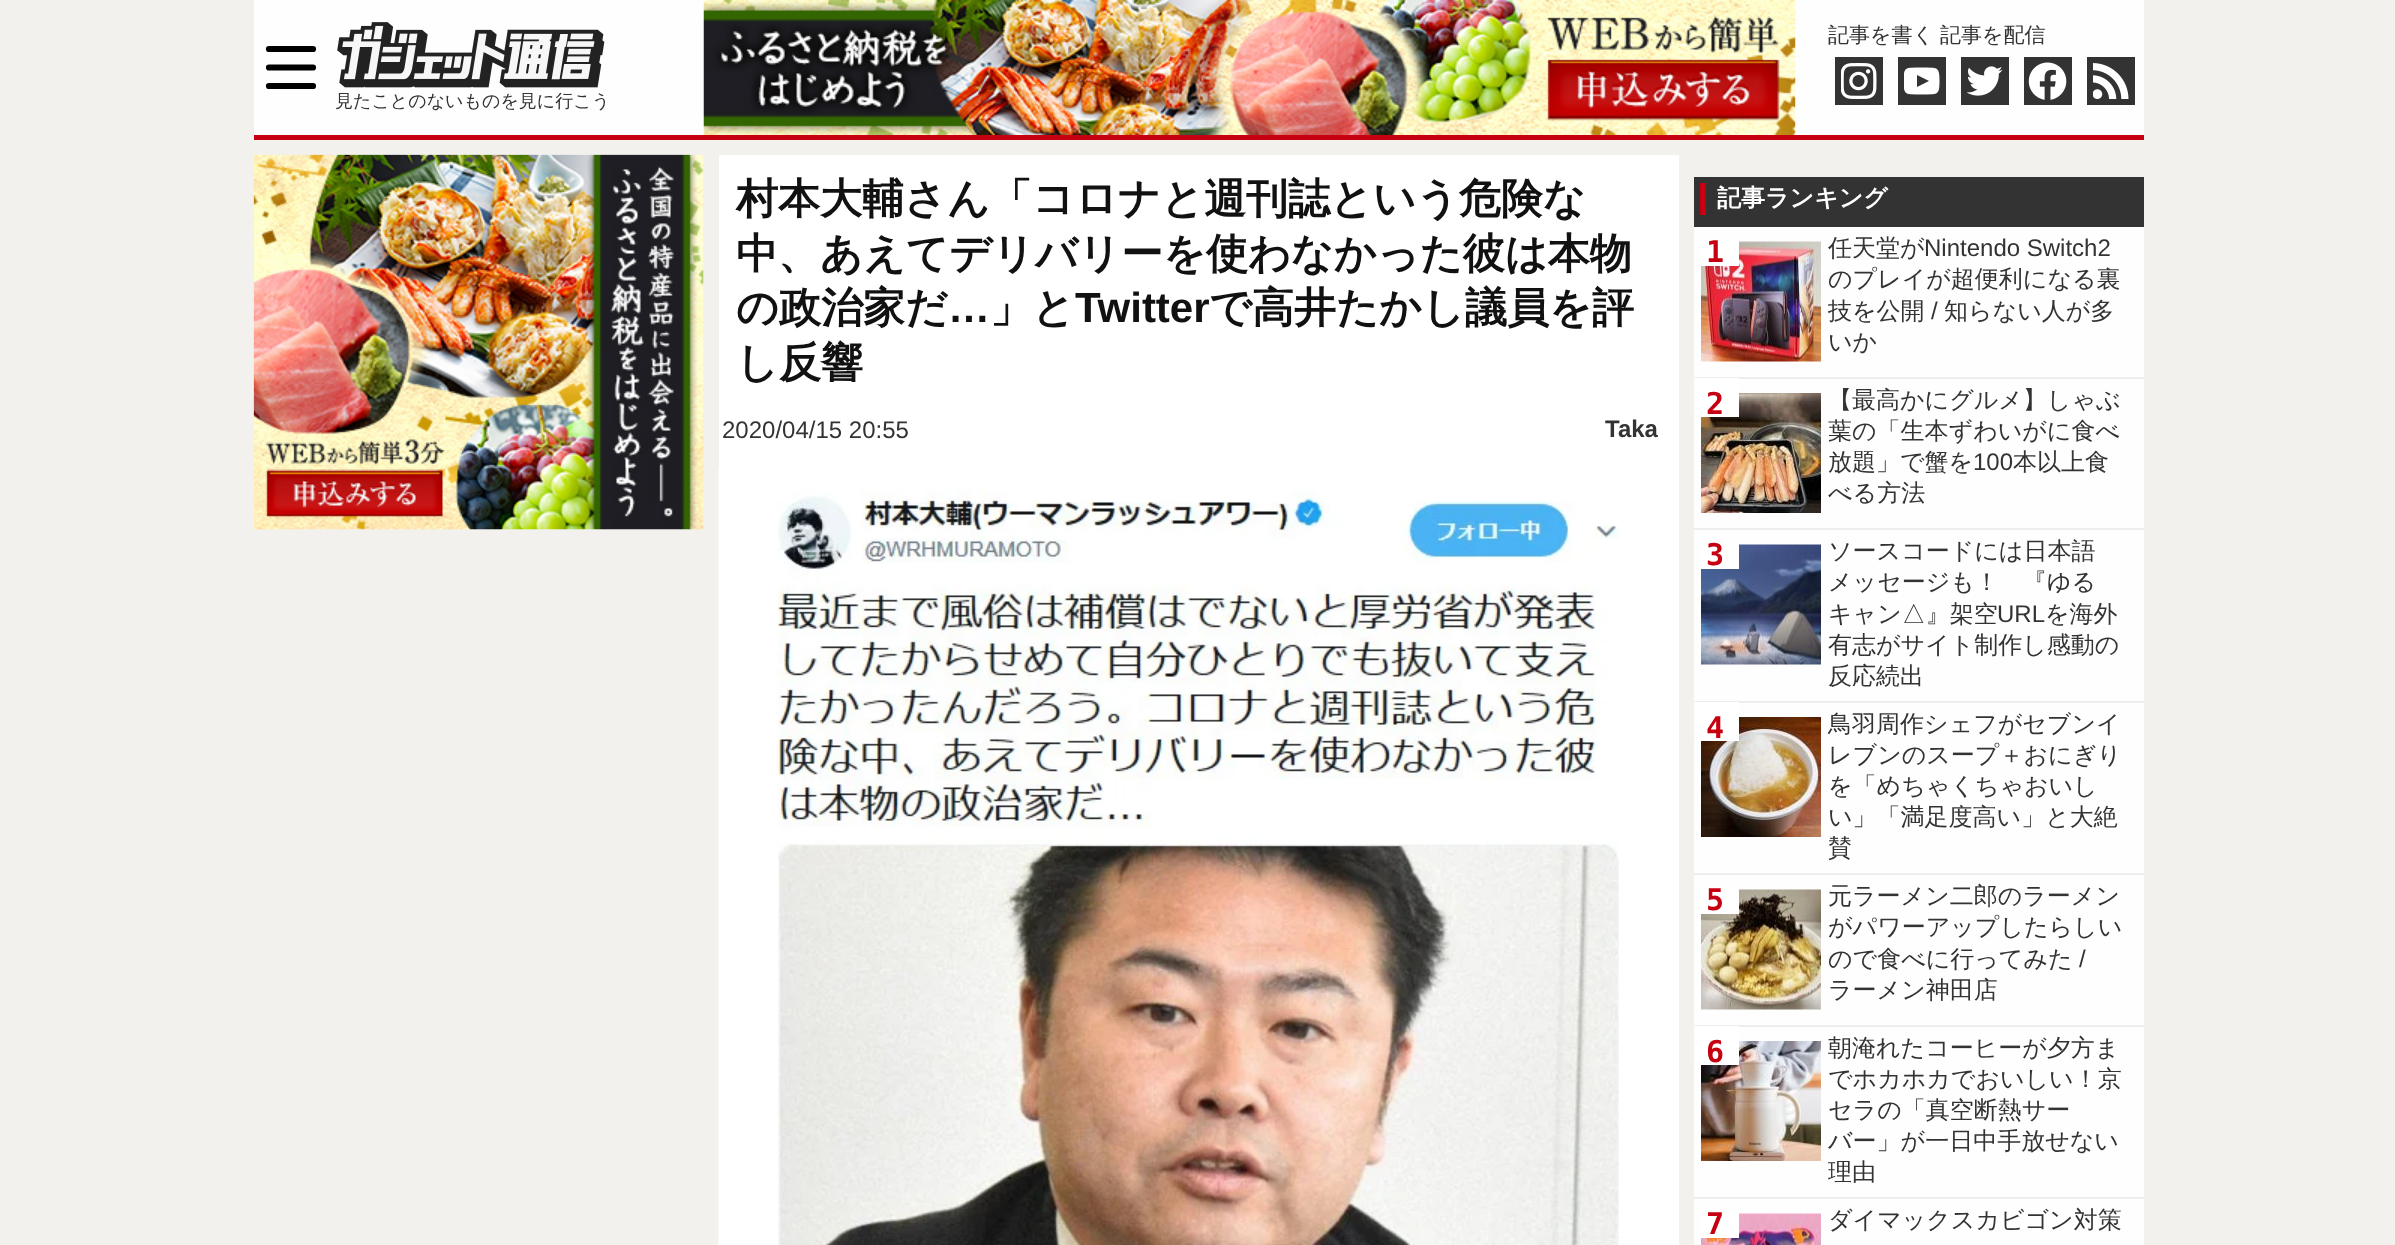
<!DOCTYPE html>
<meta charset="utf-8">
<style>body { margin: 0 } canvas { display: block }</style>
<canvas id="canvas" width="2395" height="1245"></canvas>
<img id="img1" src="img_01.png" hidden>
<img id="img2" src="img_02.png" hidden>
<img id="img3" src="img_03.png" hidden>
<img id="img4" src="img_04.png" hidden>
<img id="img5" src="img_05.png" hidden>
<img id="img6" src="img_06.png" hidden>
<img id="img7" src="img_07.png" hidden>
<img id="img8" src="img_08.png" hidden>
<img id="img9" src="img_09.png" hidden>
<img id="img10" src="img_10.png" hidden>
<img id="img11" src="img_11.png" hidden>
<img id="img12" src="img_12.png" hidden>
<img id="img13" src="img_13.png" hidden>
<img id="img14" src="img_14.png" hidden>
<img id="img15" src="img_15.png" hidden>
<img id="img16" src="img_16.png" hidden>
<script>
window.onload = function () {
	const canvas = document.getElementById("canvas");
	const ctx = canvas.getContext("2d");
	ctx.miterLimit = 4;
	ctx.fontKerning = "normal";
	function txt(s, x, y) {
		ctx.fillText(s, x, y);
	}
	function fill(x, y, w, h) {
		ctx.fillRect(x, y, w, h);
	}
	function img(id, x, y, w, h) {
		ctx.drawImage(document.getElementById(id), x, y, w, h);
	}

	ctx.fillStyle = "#F2F1ED";
	fill(0, 0, 2395, 1245);
	ctx.fillStyle = "#FEFEFE";
	fill(254, 0, 1890, 135);
	img("img1", 703, 0, 1093, 135);
	ctx.fillStyle = "#333333";
	fill(1835, 57, 48, 48);
	img("img2", 1841, 63, 36, 36);
	fill(1898, 57, 48, 48);
	img("img3", 1904, 67, 36, 28);
	fill(1961, 57, 48, 48);
	img("img4", 1967, 66, 36, 30);
	fill(2024, 57, 48, 48);
	img("img5", 2028, 62, 39, 38);
	fill(2087, 57, 48, 48);
	img("img6", 2093, 63, 36, 36);
	ctx.beginPath();
	ctx.moveTo(269, 49);
	ctx.lineTo(313, 49);
	ctx.moveTo(269, 67.5);
	ctx.lineTo(313, 67.5);
	ctx.moveTo(269, 86);
	ctx.lineTo(313, 86);
	ctx.strokeStyle = "#000000";
	ctx.lineWidth = 6.2;
	ctx.lineCap = "round";
	ctx.lineJoin = "round";
	ctx.stroke();
	img("img7", 337, 22, 268, 66);
	ctx.fillStyle = "#C60010";
	fill(254, 135, 1890, 5);
	img("img8", 253, 154, 451, 376);
	ctx.fillStyle = "#FFFFFF";
	fill(719, 155, 960, 1090);
	img("img9", 718, 466, 901, 779);
	ctx.fillStyle = "#333333";
	fill(1694, 177, 450, 50);
	ctx.fillStyle = "#C60010";
	fill(1700, 183, 6, 32);
	ctx.fillStyle = "#FEFEFE";
	fill(1694, 227, 450, 1018);
	ctx.fillStyle = "#EEEEEE";
	fill(1694, 377, 450, 2);
	img("img10", 1701, 241, 120, 121);
	ctx.fillStyle = "#FFFFFF";
	fill(1701, 241, 38, 25);
	ctx.fillStyle = "#EEEEEE";
	fill(1694, 528, 450, 2);
	img("img11", 1701, 393, 120, 120);
	ctx.fillStyle = "#FFFFFF";
	fill(1694, 378, 45, 39);
	ctx.fillStyle = "#EEEEEE";
	fill(1694, 701, 450, 2);
	img("img12", 1701, 544, 120, 121);
	ctx.fillStyle = "#FFFFFF";
	fill(1701, 544, 38, 25);
	ctx.fillStyle = "#EEEEEE";
	fill(1694, 873, 450, 2);
	img("img13", 1701, 717, 120, 120);
	ctx.fillStyle = "#FFFFFF";
	fill(1694, 702, 45, 39);
	ctx.fillStyle = "#EEEEEE";
	fill(1694, 1025, 450, 2);
	img("img14", 1701, 889, 120, 121);
	ctx.fillStyle = "#FFFFFF";
	fill(1701, 889, 38, 25);
	ctx.fillStyle = "#EEEEEE";
	fill(1694, 1197, 450, 2);
	img("img15", 1701, 1041, 120, 120);
	ctx.fillStyle = "#FFFFFF";
	fill(1694, 1026, 45, 39);
	img("img16", 1701, 1213, 120, 32);
	fill(1701, 1213, 38, 25);
	ctx.font = "500 21px WenQuanYi Zen Hei";
	ctx.fillStyle = "#333333";
	txt("記事を書く", 1828, 42);
	txt("記事を配信", 1940, 42);
	ctx.font = "500 18px WenQuanYi Zen Hei";
	txt("見たことのないものを見に行こう", 335, 107);
	ctx.font = "bold 42px WenQuanYi Zen Hei";
	ctx.fillStyle = "#111111";
	txt("村本大輔さん「コロナと週刊誌という危険な", 736, 213);
	txt("中、あえてデリバリーを使わなかった彼は本物", 736, 268);
	txt("の政治家だ", 736, 322);
	ctx.font = "bold 42px Liberation Sans";
	txt("…", 948, 322);
	ctx.font = "bold 42px WenQuanYi Zen Hei";
	txt("」と", 990, 322);
	ctx.font = "bold 42px Liberation Sans";
	txt("Twitter", 1075, 322);
	ctx.font = "bold 42px WenQuanYi Zen Hei";
	txt("で高井たかし議員を評", 1209, 322);
	txt("し反響", 736, 377);
	ctx.font = "24px Liberation Sans";
	ctx.fillStyle = "#333333";
	txt("2020/04/15 20:55", 722, 438);
	ctx.font = "bold 24px Liberation Sans";
	txt("Taka", 1605, 437);
	ctx.font = "bold 24px WenQuanYi Zen Hei";
	ctx.fillStyle = "#FFFFFF";
	txt("記事ランキング", 1717, 206);
	ctx.font = "bold 30px DejaVu Sans Mono";
	ctx.fillStyle = "#C60010";
	txt("1", 1706, 262);
	ctx.font = "500 24px WenQuanYi Zen Hei";
	ctx.fillStyle = "#333333";
	txt("任天堂が", 1828, 256);
	ctx.font = "24px Liberation Sans";
	txt("Nintendo Switch2", 1924, 256);
	ctx.font = "500 24px WenQuanYi Zen Hei";
	txt("のプレイが超便利になる裏", 1828, 287);
	txt("技を公開", 1828, 319);
	ctx.font = "24px Liberation Sans";
	txt("/", 1931, 319);
	ctx.font = "500 24px WenQuanYi Zen Hei";
	txt("知らない人が多", 1944, 319);
	txt("いか", 1828, 350);
	ctx.font = "bold 30px DejaVu Sans Mono";
	ctx.fillStyle = "#C60010";
	txt("2", 1706, 414);
	ctx.font = "500 24px WenQuanYi Zen Hei";
	ctx.fillStyle = "#333333";
	txt("【最高かにグルメ】しゃぶ", 1828, 408);
	txt("葉の「生本ずわいがに食べ", 1828, 439);
	txt("放題」で蟹を", 1828, 470);
	ctx.font = "24px Liberation Sans";
	txt("100", 1973, 470);
	ctx.font = "500 24px WenQuanYi Zen Hei";
	txt("本以上食", 2013, 470);
	txt("べる方法", 1828, 501);
	ctx.font = "bold 30px DejaVu Sans Mono";
	ctx.fillStyle = "#C60010";
	txt("3", 1706, 565);
	ctx.font = "500 24px WenQuanYi Zen Hei";
	ctx.fillStyle = "#333333";
	txt("ソースコードには日本語", 1828, 559);
	txt("メッセージも！　『ゆる", 1828, 590);
	txt("キャン△』架空", 1828, 622);
	ctx.font = "24px Liberation Sans";
	txt("URL", 1997, 622);
	ctx.font = "500 24px WenQuanYi Zen Hei";
	txt("を海外", 2045, 622);
	txt("有志がサイト制作し感動の", 1828, 653);
	txt("反応続出", 1828, 684);
	ctx.font = "bold 30px DejaVu Sans Mono";
	ctx.fillStyle = "#C60010";
	txt("4", 1706, 738);
	ctx.font = "500 24px WenQuanYi Zen Hei";
	ctx.fillStyle = "#333333";
	txt("鳥羽周作シェフがセブンイ", 1828, 732);
	txt("レブンのスープ＋おにぎり", 1828, 763);
	txt("を「めちゃくちゃおいし", 1828, 794);
	txt("い」「満足度高い」と大絶", 1828, 825);
	txt("賛", 1828, 856);
	ctx.font = "bold 30px DejaVu Sans Mono";
	ctx.fillStyle = "#C60010";
	txt("5", 1706, 910);
	ctx.font = "500 24px WenQuanYi Zen Hei";
	ctx.fillStyle = "#333333";
	txt("元ラーメン二郎のラーメン", 1828, 904);
	txt("がパワーアップしたらしい", 1828, 935);
	txt("ので食べに行ってみた", 1828, 967);
	ctx.font = "24px Liberation Sans";
	txt("/", 2079, 967);
	ctx.font = "500 24px WenQuanYi Zen Hei";
	txt("ラーメン神田店", 1828, 998);
	ctx.font = "bold 30px DejaVu Sans Mono";
	ctx.fillStyle = "#C60010";
	txt("6", 1706, 1062);
	ctx.font = "500 24px WenQuanYi Zen Hei";
	ctx.fillStyle = "#333333";
	txt("朝淹れたコーヒーが夕方ま", 1828, 1056);
	txt("でホカホカでおいしい！京", 1828, 1087);
	txt("セラの「真空断熱サー", 1828, 1118);
	txt("バー」が一日中手放せない", 1828, 1149);
	txt("理由", 1828, 1180);
	ctx.font = "bold 30px DejaVu Sans Mono";
	ctx.fillStyle = "#C60010";
	txt("7", 1706, 1234);
	ctx.font = "500 24px WenQuanYi Zen Hei";
	ctx.fillStyle = "#333333";
	txt("ダイマックスカビゴン対策", 1828, 1228);
};
</script>
